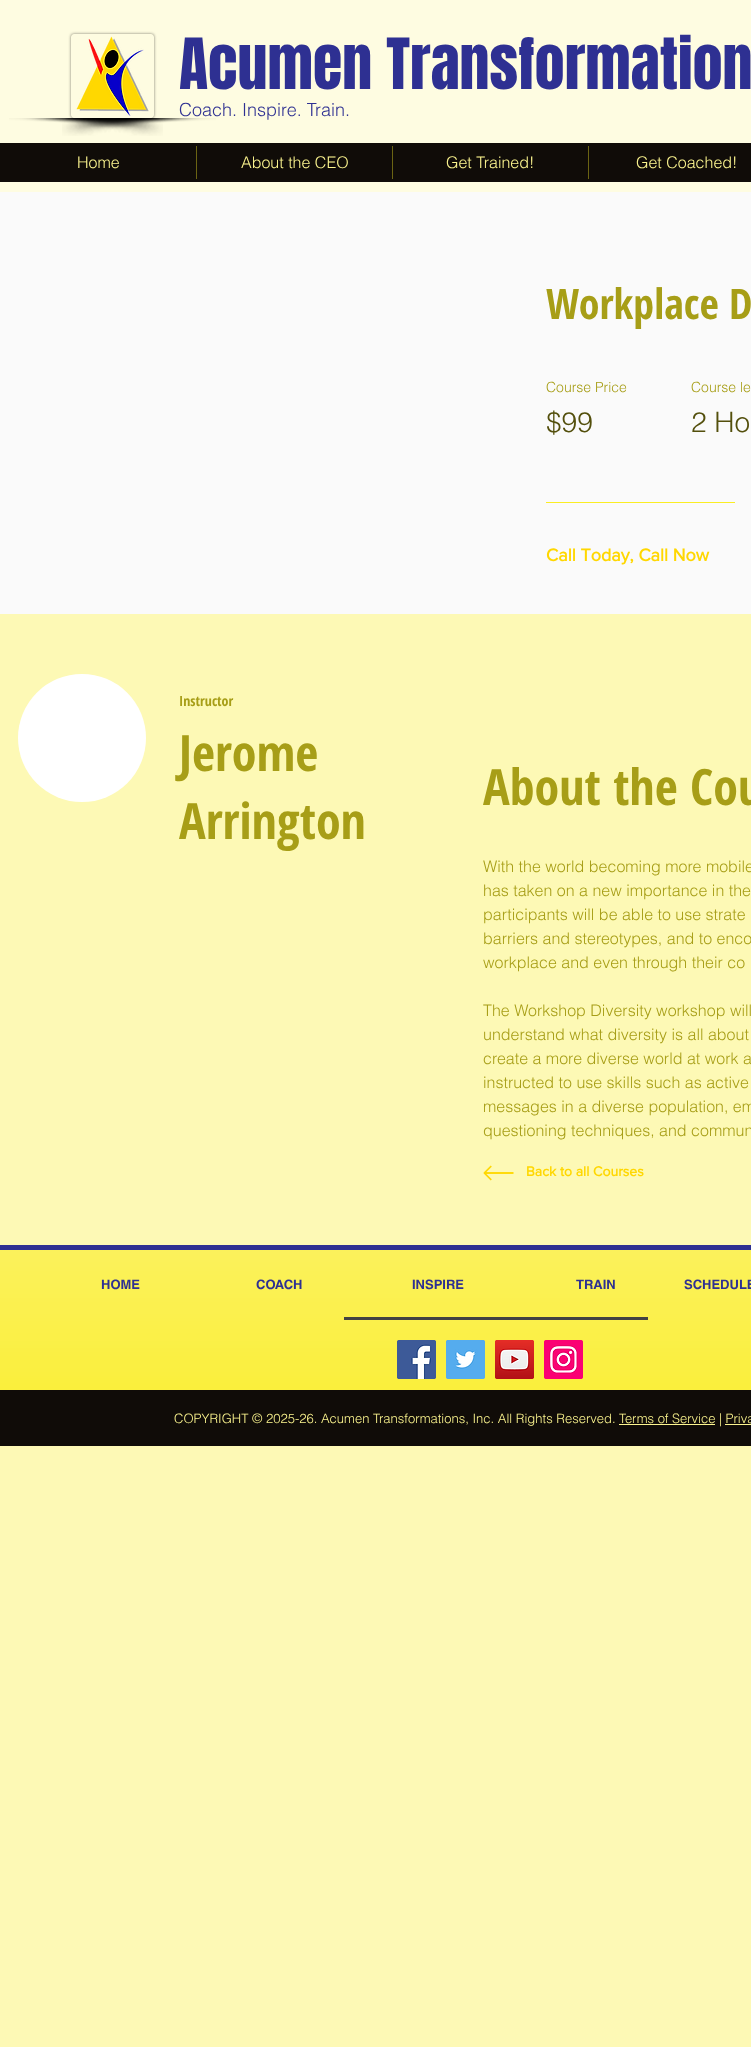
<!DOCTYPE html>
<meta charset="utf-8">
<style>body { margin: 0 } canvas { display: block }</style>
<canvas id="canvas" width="751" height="2047"></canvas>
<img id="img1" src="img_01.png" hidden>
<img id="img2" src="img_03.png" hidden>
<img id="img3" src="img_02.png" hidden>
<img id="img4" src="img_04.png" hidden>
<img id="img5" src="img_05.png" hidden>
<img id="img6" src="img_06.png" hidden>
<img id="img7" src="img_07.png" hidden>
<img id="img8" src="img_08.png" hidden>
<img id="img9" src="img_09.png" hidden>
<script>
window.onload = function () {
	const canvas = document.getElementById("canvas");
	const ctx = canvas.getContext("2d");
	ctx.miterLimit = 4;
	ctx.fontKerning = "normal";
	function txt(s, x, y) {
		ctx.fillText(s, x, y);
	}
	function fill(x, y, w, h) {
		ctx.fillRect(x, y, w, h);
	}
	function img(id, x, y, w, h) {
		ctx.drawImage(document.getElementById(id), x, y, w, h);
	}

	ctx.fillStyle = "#FDF9B5";
	fill(0, 0, 751, 2047);
	ctx.fillStyle = "#FEFCE1";
	fill(0, 0, 751, 192);
	ctx.save();
	ctx.beginPath();
	ctx.moveTo(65, 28);
	ctx.lineTo(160, 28);
	ctx.lineTo(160, 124);
	ctx.lineTo(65, 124);
	ctx.closePath();
	ctx.moveTo(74, 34);
	ctx.lineTo(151, 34);
	ctx.bezierCurveTo(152.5, 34, 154, 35.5, 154, 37);
	ctx.lineTo(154, 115);
	ctx.bezierCurveTo(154, 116.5, 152.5, 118, 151, 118);
	ctx.lineTo(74, 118);
	ctx.bezierCurveTo(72.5, 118, 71, 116.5, 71, 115);
	ctx.lineTo(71, 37);
	ctx.bezierCurveTo(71, 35.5, 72.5, 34, 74, 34);
	ctx.closePath();
	ctx.clip("evenodd");
	ctx.fillStyle = "rgba(0, 0, 0, 0.5)";
	ctx.filter = "blur(1.5px)";
	ctx.beginPath();
	ctx.roundRect(71, 34, 83, 84, 3);
	ctx.fill();
	ctx.filter = "none";
	ctx.restore();
	img("img1", 76, 36, 73, 80);
	img("img2", 62, 118, 154, 18);
	img("img3", 9, 118, 154, 18);
	ctx.fillStyle = "#100C08";
	fill(0, 143, 751, 39);
	ctx.fillStyle = "#6B6413";
	fill(196, 146, 1, 33);
	fill(392, 146, 1, 33);
	fill(588, 146, 1, 33);
	ctx.fillStyle = "#FAFAFA";
	fill(0, 192, 751, 422);
	ctx.fillStyle = "#FAED23";
	fill(546, 502, 189, 1);
	ctx.fillStyle = "#FFFFFF";
	ctx.beginPath();
	ctx.arc(82, 738, 64, 0, Math.PI * 2);
	ctx.fill();
	img("img4", 483, 1165, 31, 16);
	ctx.fillStyle = "#FAED23";
	fill(0, 1250, 751, 140);
	img("img5", 0, 1250, 751, 140);
	ctx.fillStyle = "#2E3092";
	fill(0, 1245, 751, 5);
	ctx.fillStyle = "#424242";
	fill(344, 1317, 304, 3);
	img("img6", 397, 1340, 39, 39);
	img("img7", 446, 1340, 39, 39);
	img("img8", 495, 1340, 39, 39);
	img("img9", 544, 1340, 39, 39);
	ctx.fillStyle = "#100C08";
	fill(0, 1390, 751, 56);
	ctx.fillStyle = "#FCF58F";
	fill(619, 1424, 96, 1);
	fill(725, 1424, 26, 1);
	ctx.font = "60px Anton";
	ctx.fillStyle = "#2E3092";
	txt("Acumen Transformation", 179, 89);
	ctx.font = "300 18px helvetica";
	txt("Coach. Inspire. Train.", 179, 116);
	ctx.font = "300 16px helvetica";
	ctx.fillStyle = "#FCF58F";
	txt("Home", 77, 168);
	txt("About the CEO", 241, 168);
	txt("Get Trained!", 446, 168);
	txt("Get Coached!", 636, 168);
	ctx.font = "bold 42px Open Sans Condensed";
	ctx.fillStyle = "#A79E17";
	txt("Workplace D", 546, 319);
	ctx.font = "300 14px helvetica";
	txt("Course Price", 546, 392);
	txt("Course le", 691, 392);
	ctx.font = "300 28px helvetica";
	ctx.fillStyle = "#534F0C";
	txt("$99", 546, 432);
	txt("2 Ho", 691, 432);
	ctx.font = "bold 18px 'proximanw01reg'";
	ctx.fillStyle = "#FFD700";
	txt("Call Today, Call Now", 546, 561);
	ctx.font = "bold 14px Open Sans Condensed";
	ctx.fillStyle = "#A79E17";
	txt("Instructor", 179, 706);
	ctx.font = "bold 50px Open Sans Condensed";
	txt("Jerome", 179, 771);
	txt("Arrington", 179, 839);
	txt("About the Cou", 483, 805);
	ctx.font = "300 16px helvetica";
	txt("With the world becoming more mobile", 483, 872);
	txt("has taken on a new importance in the", 483, 896);
	txt("participants will be able to use strate", 483, 920);
	txt("barriers and stereotypes, and to enco", 483, 944);
	txt("workplace and even through their co", 483, 968);
	txt("The Workshop Diversity workshop will", 483, 1016);
	txt("understand what diversity is all about", 483, 1040);
	txt("create a more diverse world at work a", 483, 1064);
	txt("instructed to use skills such as active", 483, 1088);
	txt("messages in a diverse population, em", 483, 1112);
	txt("questioning techniques, and commun", 483, 1136);
	ctx.font = "bold 14px 'proximanw01reg'";
	ctx.fillStyle = "#FFD700";
	txt("Back to all Courses", 526, 1176);
	ctx.font = "bold 13px helvetica";
	ctx.fillStyle = "#2E3092";
	txt("HOME", 101, 1289);
	txt("COACH", 256, 1289);
	txt("INSPIRE", 412, 1289);
	txt("TRAIN", 576, 1289);
	txt("SCHEDULE", 684, 1289);
	ctx.font = "300 13px helvetica";
	ctx.fillStyle = "#FCF58F";
	txt("COPYRIGHT © 2025-26. Acumen Transformations, Inc. All Rights Reserved. Terms of Service | Priva", 174, 1423);
};
</script>
